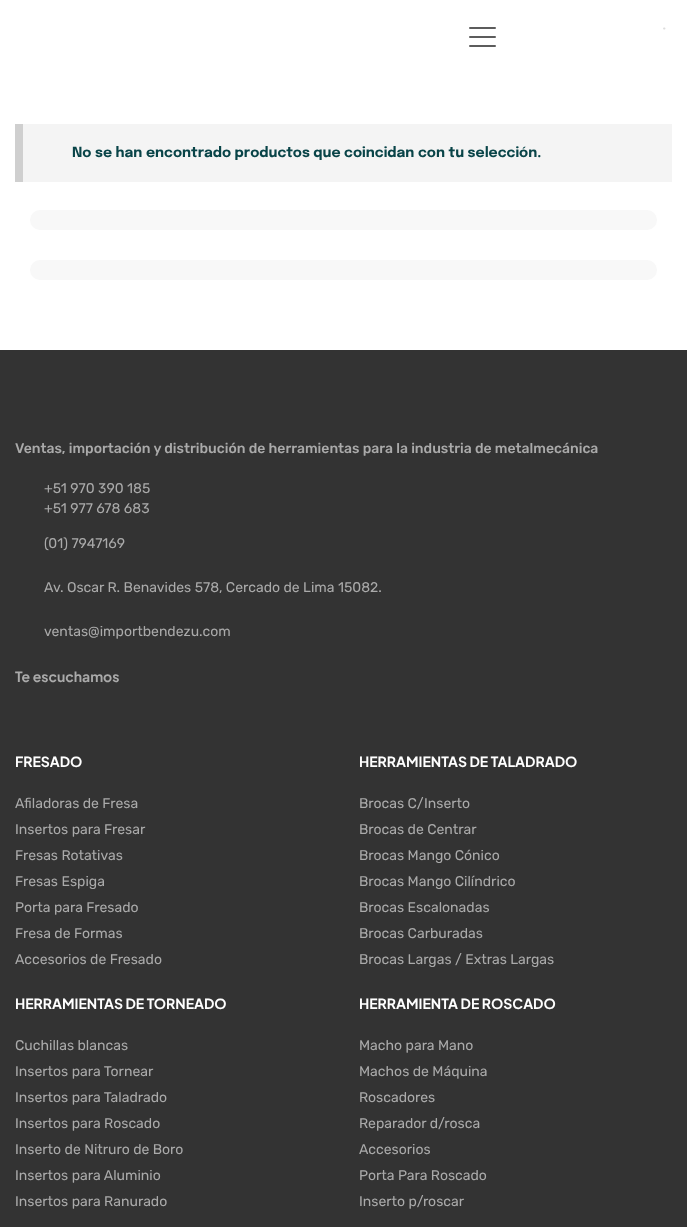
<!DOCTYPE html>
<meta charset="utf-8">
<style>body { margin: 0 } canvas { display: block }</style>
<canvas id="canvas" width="687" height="1227"></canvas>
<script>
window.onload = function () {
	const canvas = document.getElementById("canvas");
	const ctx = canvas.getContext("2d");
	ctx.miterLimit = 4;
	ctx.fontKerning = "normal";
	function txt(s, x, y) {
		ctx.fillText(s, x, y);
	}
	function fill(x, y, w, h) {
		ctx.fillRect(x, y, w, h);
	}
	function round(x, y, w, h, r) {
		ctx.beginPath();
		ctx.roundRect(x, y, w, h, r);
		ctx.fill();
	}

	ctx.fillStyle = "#FFFFFF";
	fill(0, 0, 687, 1227);
	ctx.fillStyle = "#5C5C5C";
	round(469, 27, 27, 2, 1);
	round(469, 36, 27, 2, 1);
	round(469, 45, 27, 2, 1);
	ctx.beginPath();
	ctx.moveTo(664, 28.5);
	ctx.lineTo(664.5, 28.5);
	ctx.strokeStyle = "#DDDDDD";
	ctx.lineWidth = 1.9;
	ctx.lineCap = "round";
	ctx.stroke();
	ctx.fillStyle = "#F4F4F4";
	fill(23, 124, 649, 58);
	ctx.fillStyle = "#CFCFCF";
	fill(15, 124, 8, 58);
	ctx.fillStyle = "#F8F8F8";
	round(30, 210, 627, 20, 10);
	round(30, 260, 627, 20, 10);
	ctx.fillStyle = "#333333";
	fill(0, 350, 687, 877);
	ctx.font = "bold 14px Epilogue";
	ctx.fillStyle = "#094448";
	txt("No se han encontrado productos que coincidan con tu selección.", 72, 157);
	ctx.font = "500 14px Rubik";
	ctx.fillStyle = "#AAAAAA";
	txt("Ventas, importación y distribución de herramientas para la industria de metalmecánica", 15, 453);
	ctx.font = "14px Rubik";
	txt("+51 970 390 185", 44, 493);
	txt("+51 977 678 683", 44, 513);
	txt("(01) 7947169", 44, 548);
	txt("Av. Oscar R. Benavides 578, Cercado de Lima 15082.", 44, 592);
	txt("ventas@importbendezu.com", 44, 636);
	ctx.font = "bold 14px Plus Jakarta Sans";
	txt("Te escuchamos", 15, 682);
	ctx.fillStyle = "#FFFFFF";
	txt("FRESADO", 15, 767);
	ctx.font = "14px Rubik";
	ctx.fillStyle = "#AAAAAA";
	txt("Afiladoras de Fresa", 15, 808);
	txt("Insertos para Fresar", 15, 834);
	txt("Fresas Rotativas", 15, 860);
	txt("Fresas Espiga", 15, 886);
	txt("Porta para Fresado", 15, 912);
	txt("Fresa de Formas", 15, 938);
	txt("Accesorios de Fresado", 15, 964);
	ctx.font = "bold 14px Plus Jakarta Sans";
	ctx.fillStyle = "#FFFFFF";
	txt("HERRAMIENTAS DE TORNEADO", 15, 1009);
	ctx.font = "14px Rubik";
	ctx.fillStyle = "#AAAAAA";
	txt("Cuchillas blancas", 15, 1050);
	txt("Insertos para Tornear", 15, 1076);
	txt("Insertos para Taladrado", 15, 1102);
	txt("Insertos para Roscado", 15, 1128);
	txt("Inserto de Nitruro de Boro", 15, 1154);
	txt("Insertos para Aluminio", 15, 1180);
	txt("Insertos para Ranurado", 15, 1206);
	ctx.font = "bold 14px Plus Jakarta Sans";
	ctx.fillStyle = "#FFFFFF";
	txt("HERRAMIENTAS DE TALADRADO", 359, 767);
	ctx.font = "14px Rubik";
	ctx.fillStyle = "#AAAAAA";
	txt("Brocas C/Inserto", 359, 808);
	txt("Brocas de Centrar", 359, 834);
	txt("Brocas Mango Cónico", 359, 860);
	txt("Brocas Mango Cilíndrico", 359, 886);
	txt("Brocas Escalonadas", 359, 912);
	txt("Brocas Carburadas", 359, 938);
	txt("Brocas Largas / Extras Largas", 359, 964);
	ctx.font = "bold 14px Plus Jakarta Sans";
	ctx.fillStyle = "#FFFFFF";
	txt("HERRAMIENTA DE ROSCADO", 359, 1009);
	ctx.font = "14px Rubik";
	ctx.fillStyle = "#AAAAAA";
	txt("Macho para Mano", 359, 1050);
	txt("Machos de Máquina", 359, 1076);
	txt("Roscadores", 359, 1102);
	txt("Reparador d/rosca", 359, 1128);
	txt("Accesorios", 359, 1154);
	txt("Porta Para Roscado", 359, 1180);
	txt("Inserto p/roscar", 359, 1206);
};
</script>
